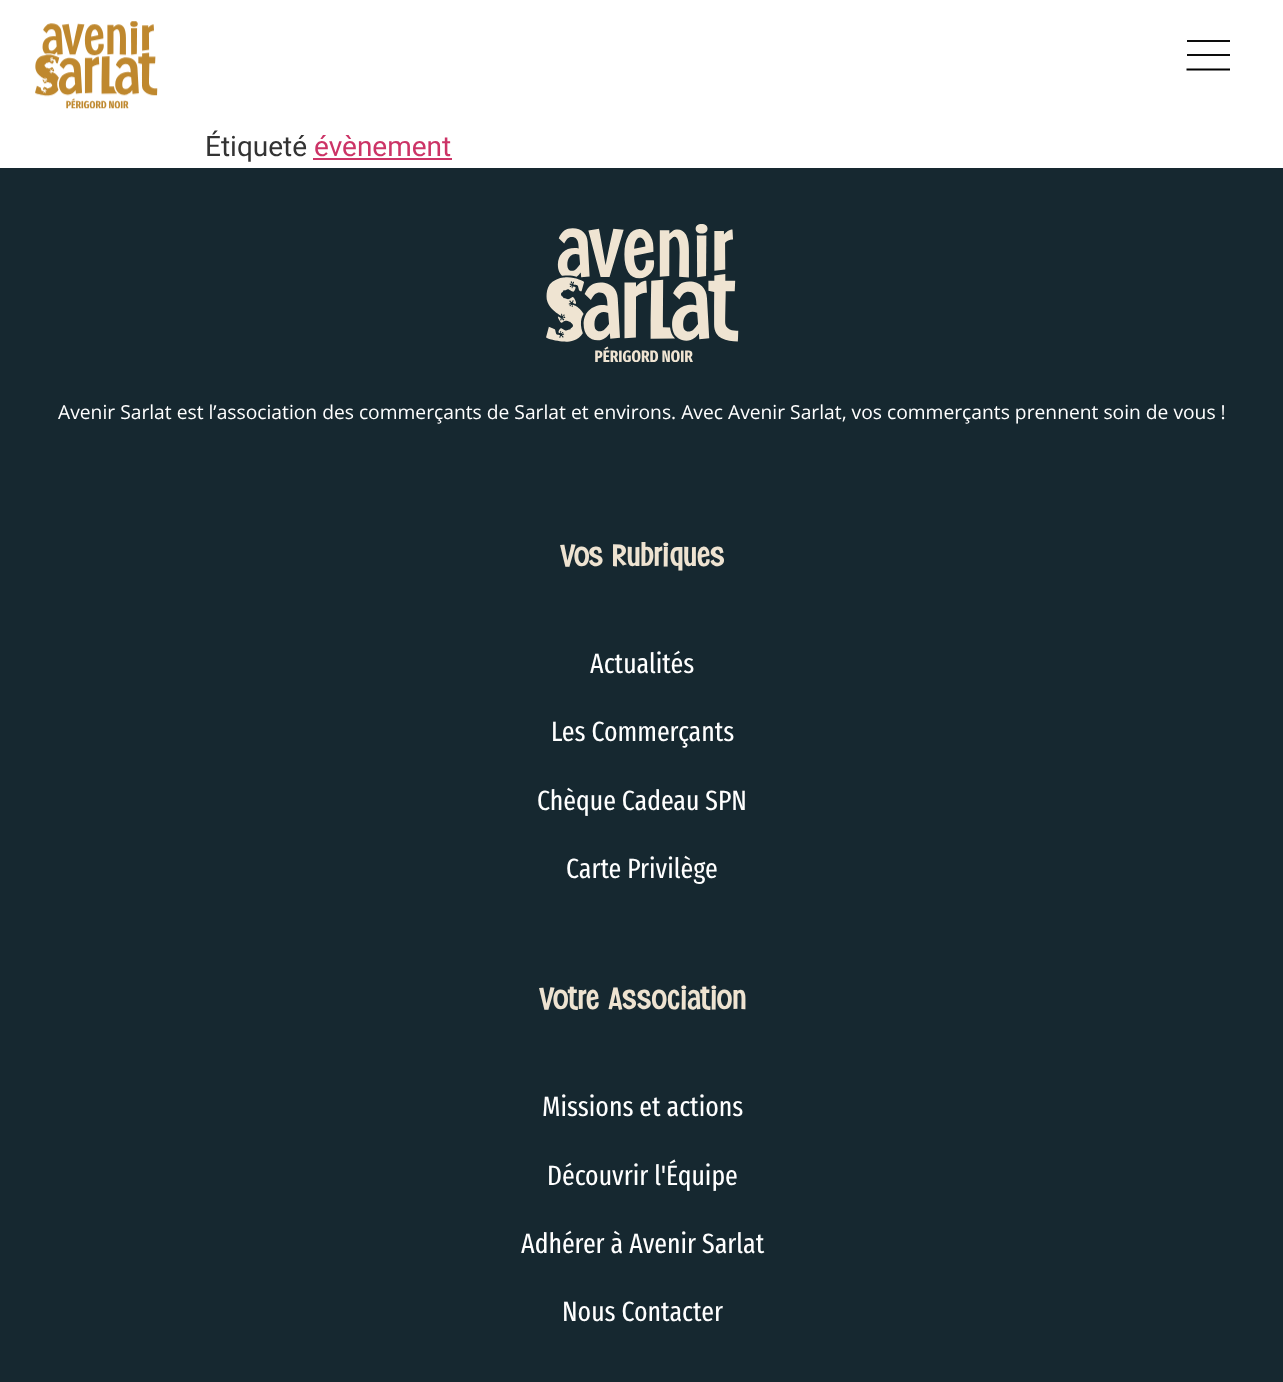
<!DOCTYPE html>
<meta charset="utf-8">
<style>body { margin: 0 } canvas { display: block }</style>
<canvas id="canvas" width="1283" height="1382"></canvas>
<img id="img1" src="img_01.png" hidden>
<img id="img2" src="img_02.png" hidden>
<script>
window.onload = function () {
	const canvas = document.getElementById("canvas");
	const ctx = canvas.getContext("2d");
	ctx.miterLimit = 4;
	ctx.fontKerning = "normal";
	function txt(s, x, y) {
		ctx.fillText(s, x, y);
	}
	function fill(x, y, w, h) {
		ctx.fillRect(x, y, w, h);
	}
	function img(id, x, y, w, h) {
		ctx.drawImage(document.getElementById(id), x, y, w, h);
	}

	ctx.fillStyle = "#FFFFFF";
	fill(0, 0, 1283, 1382);
	img("img1", 35, 21, 123, 88);
	ctx.fillStyle = "#0D0D0D";
	fill(1187, 40, 43, 2);
	fill(1187, 54, 43, 2);
	ctx.beginPath();
	ctx.moveTo(1186.5, 69.5);
	ctx.lineTo(1230, 69.5);
	ctx.strokeStyle = "#000000";
	ctx.lineWidth = 1.9;
	ctx.stroke();
	ctx.fillStyle = "#CC3366";
	fill(313, 158, 139, 2);
	ctx.fillStyle = "#162830";
	fill(0, 168, 1283, 1214);
	img("img2", 546, 224, 193, 138);
	ctx.font = "28px Roboto";
	ctx.fillStyle = "#333333";
	txt("Étiqueté", 205, 156);
	ctx.fillStyle = "#CC3366";
	txt("évènement", 314, 156);
	ctx.font = "19.25px Open Sans";
	ctx.fillStyle = "#FFFFFF";
	txt("Avenir Sarlat est l’association des commerçants de Sarlat et environs. Avec Avenir Sarlat, vos commerçants prennent soin de vous !", 58, 419);
	ctx.font = "38.5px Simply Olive";
	ctx.fillStyle = "#EEE3D1";
	txt("Vos Rubriques", 560, 566);
	ctx.font = "28px Fira Sans Extra Condensed";
	ctx.fillStyle = "#FFFFFF";
	txt("Actualités", 590, 673);
	txt("Les Commerçants", 551, 741);
	txt("Chèque Cadeau SPN", 537, 810);
	txt("Carte Privilège", 566, 878);
	ctx.font = "38.5px Simply Olive";
	ctx.fillStyle = "#EEE3D1";
	txt("Votre Association", 539, 1009);
	ctx.font = "28px Fira Sans Extra Condensed";
	ctx.fillStyle = "#FFFFFF";
	txt("Missions et actions", 542, 1116);
	txt("Découvrir l'Équipe", 547, 1185);
	txt("Adhérer à Avenir Sarlat", 521, 1253);
	txt("Nous Contacter", 562, 1321);
};
</script>
